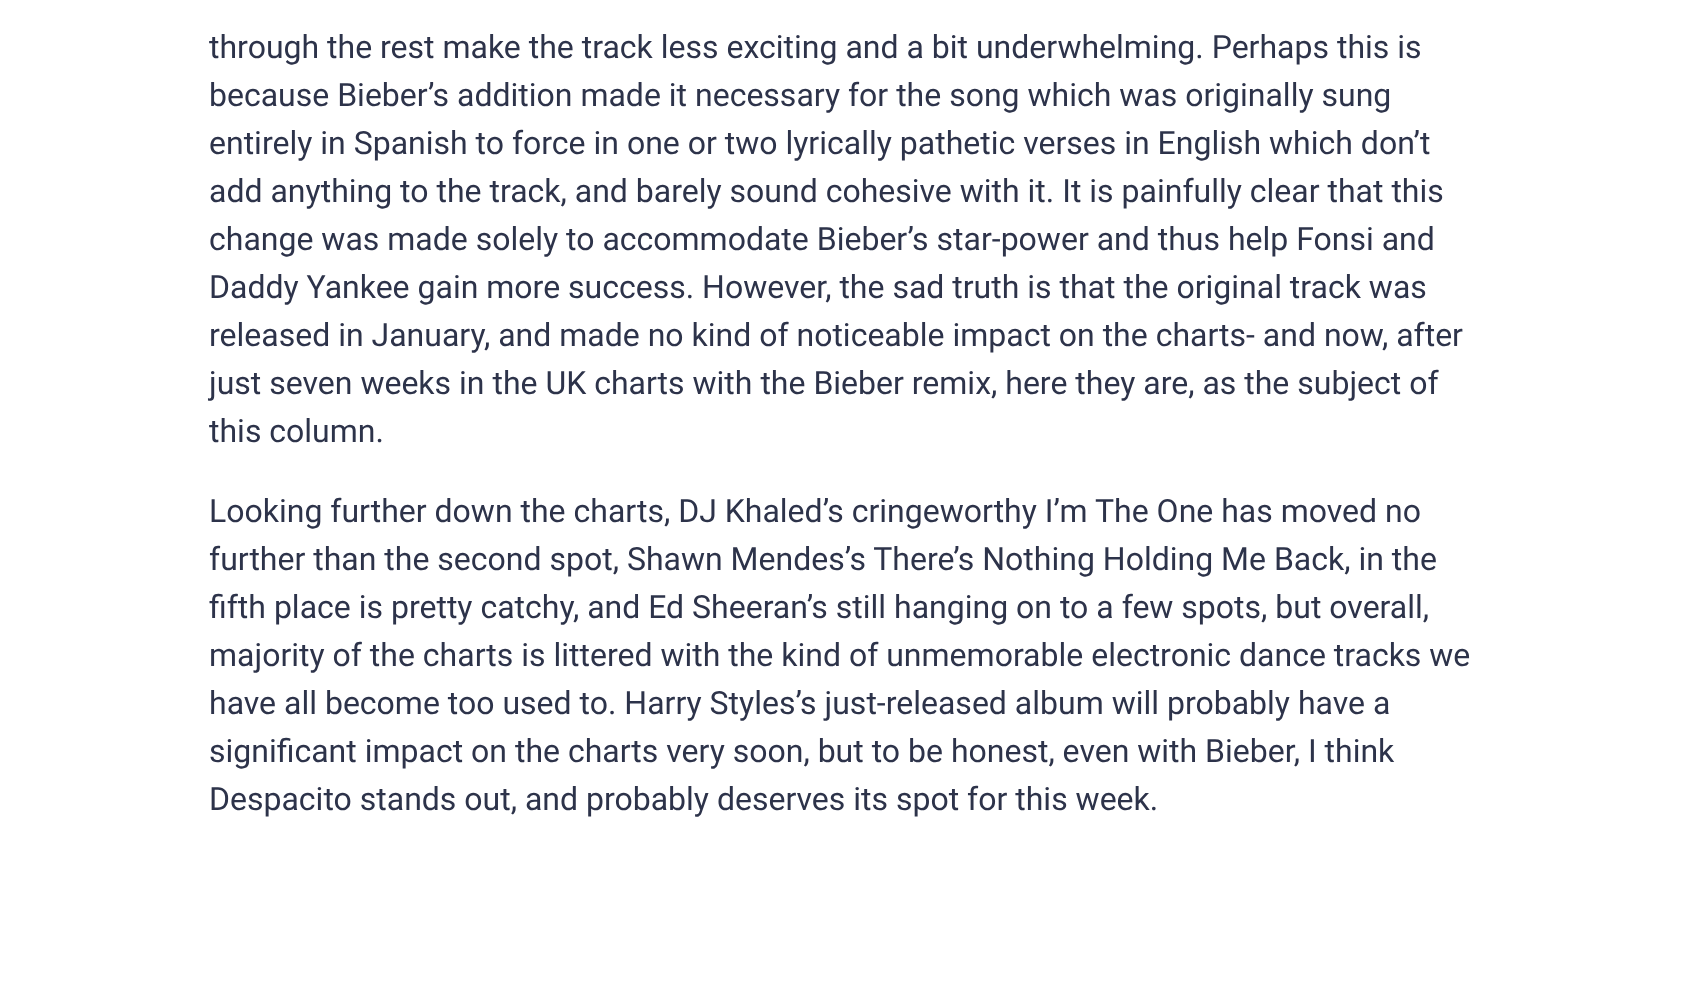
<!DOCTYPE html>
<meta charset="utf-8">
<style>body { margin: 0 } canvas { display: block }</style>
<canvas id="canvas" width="1698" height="983"></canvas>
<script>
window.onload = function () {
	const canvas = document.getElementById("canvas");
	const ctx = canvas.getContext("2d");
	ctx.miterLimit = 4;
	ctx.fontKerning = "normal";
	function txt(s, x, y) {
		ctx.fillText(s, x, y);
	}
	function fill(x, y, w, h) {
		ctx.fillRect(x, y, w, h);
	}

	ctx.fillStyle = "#FFFFFF";
	fill(0, 0, 1698, 983);
	ctx.font = "32px Roboto";
	ctx.fillStyle = "#2D334A";
	txt("through the rest make the track less exciting and a bit underwhelming. Perhaps this is", 209, 58);
	txt("because Bieber’s addition made it necessary for the song which was originally sung", 209, 106);
	txt("entirely in Spanish to force in one or two lyrically pathetic verses in English which don’t", 209, 154);
	txt("add anything to the track, and barely sound cohesive with it. It is painfully clear that this", 209, 202);
	txt("change was made solely to accommodate Bieber’s star-power and thus help Fonsi and", 209, 250);
	txt("Daddy Yankee gain more success. However, the sad truth is that the original track was", 209, 298);
	txt("released in January, and made no kind of noticeable impact on the charts- and now, after", 209, 346);
	txt("just seven weeks in the UK charts with the Bieber remix, here they are, as the subject of", 209, 394);
	txt("this column.", 209, 442);
	txt("Looking further down the charts, DJ Khaled’s cringeworthy I’m The One has moved no", 209, 522);
	txt("further than the second spot, Shawn Mendes’s There’s Nothing Holding Me Back, in the", 209, 570);
	txt("fifth place is pretty catchy, and Ed Sheeran’s still hanging on to a few spots, but overall,", 209, 618);
	txt("majority of the charts is littered with the kind of unmemorable electronic dance tracks we", 209, 666);
	txt("have all become too used to. Harry Styles’s just-released album will probably have a", 209, 714);
	txt("significant impact on the charts very soon, but to be honest, even with Bieber, I think", 209, 762);
	txt("Despacito stands out, and probably deserves its spot for this week.", 209, 810);
};
</script>
